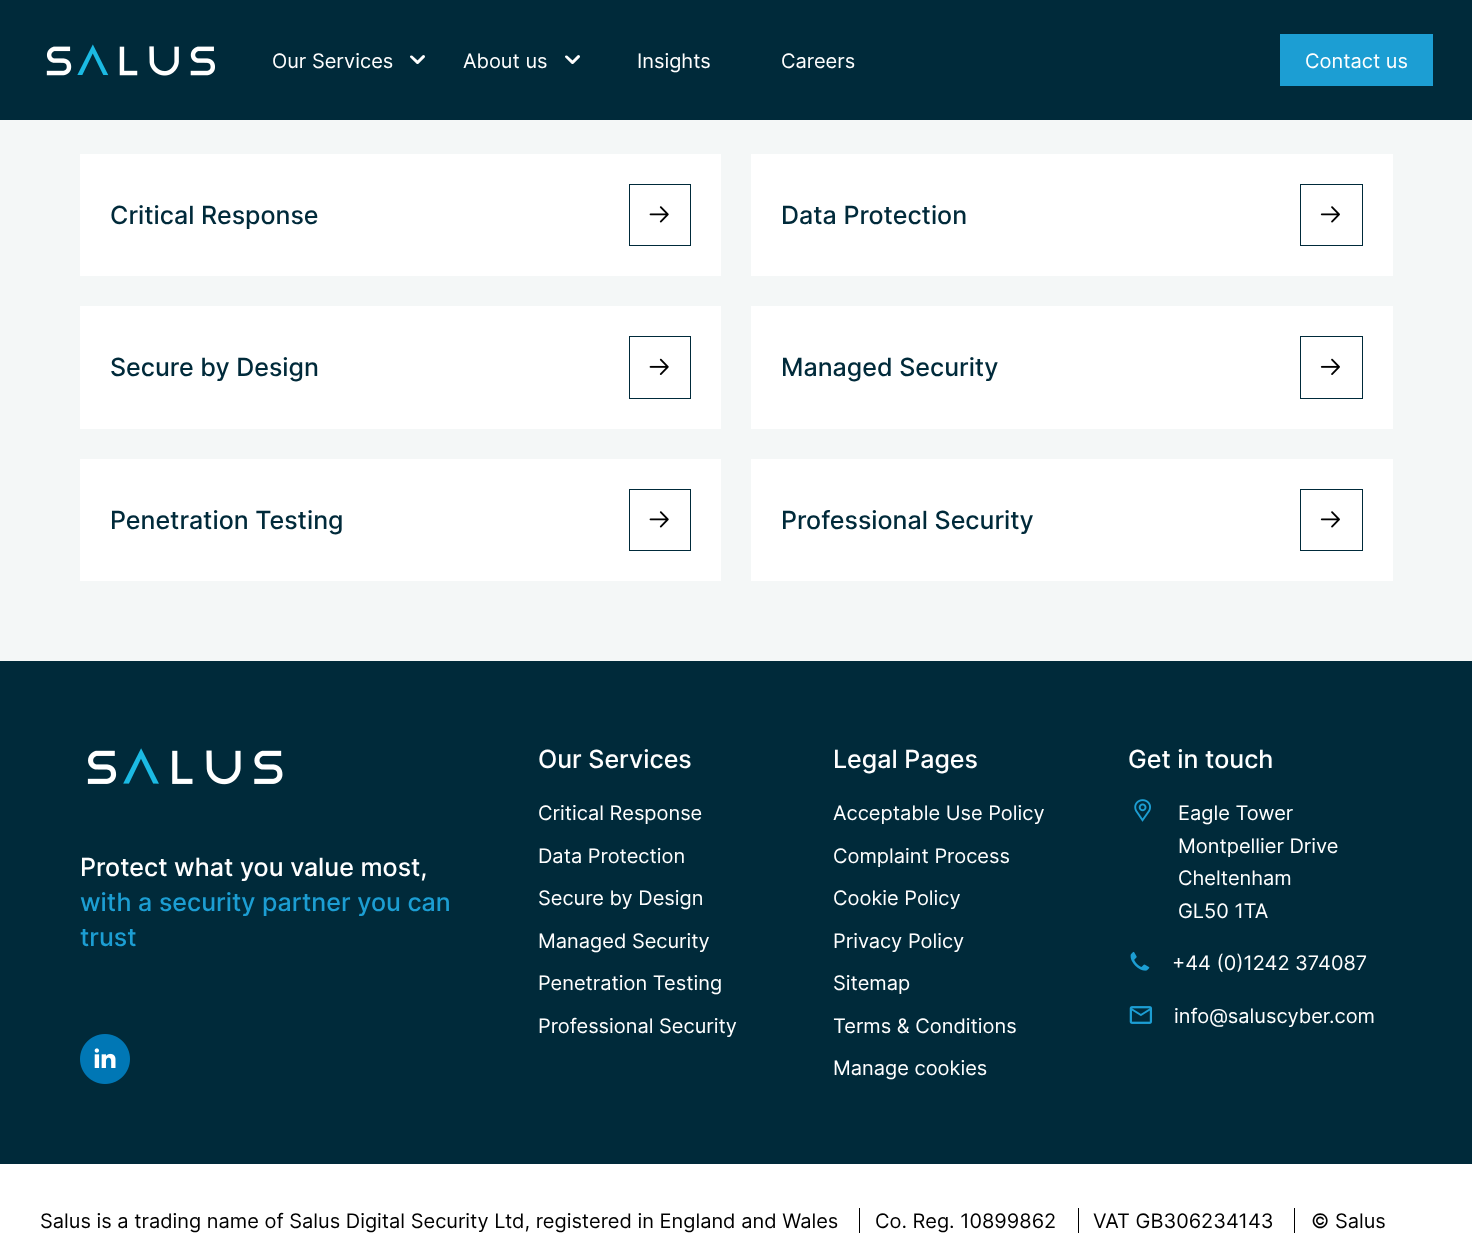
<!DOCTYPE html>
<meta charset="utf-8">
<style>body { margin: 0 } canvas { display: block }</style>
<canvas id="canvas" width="1472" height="1252"></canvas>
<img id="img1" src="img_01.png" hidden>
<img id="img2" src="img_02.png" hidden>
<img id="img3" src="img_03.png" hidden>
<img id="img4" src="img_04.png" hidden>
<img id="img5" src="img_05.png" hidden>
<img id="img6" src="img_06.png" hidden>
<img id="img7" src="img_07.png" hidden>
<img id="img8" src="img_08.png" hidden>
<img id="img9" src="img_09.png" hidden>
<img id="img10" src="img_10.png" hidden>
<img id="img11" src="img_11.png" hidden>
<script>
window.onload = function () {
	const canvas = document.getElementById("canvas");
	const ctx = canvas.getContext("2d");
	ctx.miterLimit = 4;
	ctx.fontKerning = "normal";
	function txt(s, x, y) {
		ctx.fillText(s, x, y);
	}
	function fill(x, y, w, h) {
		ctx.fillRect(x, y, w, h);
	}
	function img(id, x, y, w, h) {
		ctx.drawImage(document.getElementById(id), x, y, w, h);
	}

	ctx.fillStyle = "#FFFFFF";
	fill(0, 0, 1472, 1252);
	ctx.fillStyle = "#002A3A";
	fill(0, 0, 1472, 120);
	img("img1", 46, 44, 169, 32);
	img("img2", 410, 55, 15, 9);
	img("img2", 565, 55, 15, 9);
	ctx.fillStyle = "#1C9ED3";
	fill(1280, 34, 153, 52);
	ctx.fillStyle = "#F4F7F7";
	fill(0, 120, 1472, 541);
	ctx.fillStyle = "#FFFFFF";
	fill(80, 154, 641, 122);
	ctx.strokeStyle = "#002A3A";
	ctx.strokeRect(629.5, 184.5, 61, 61);
	img("img3", 649, 206, 20, 17);
	fill(751, 154, 642, 122);
	ctx.strokeRect(1300.5, 184.5, 62, 61);
	img("img4", 1320, 206, 20, 17);
	fill(80, 306, 641, 123);
	ctx.strokeRect(629.5, 336.5, 61, 62);
	img("img5", 649, 358, 20, 17);
	fill(751, 306, 642, 123);
	ctx.strokeRect(1300.5, 336.5, 62, 62);
	img("img6", 1320, 358, 20, 17);
	fill(80, 459, 641, 122);
	ctx.strokeRect(629.5, 489.5, 61, 61);
	img("img3", 649, 511, 20, 17);
	fill(751, 459, 642, 122);
	ctx.strokeRect(1300.5, 489.5, 62, 61);
	img("img4", 1320, 511, 20, 17);
	ctx.fillStyle = "#002A3A";
	fill(0, 661, 1472, 503);
	img("img7", 87, 748, 196, 37);
	img("img8", 80, 1034, 50, 50);
	img("img9", 1134, 799, 17, 23);
	img("img10", 1130, 951, 20, 20);
	img("img11", 1129, 1006, 24, 18);
	ctx.fillStyle = "#000000";
	fill(859, 1208, 1, 25);
	fill(1078, 1208, 1, 25);
	fill(1294, 1208, 1, 25);
	ctx.font = "20px Inter";
	ctx.fillStyle = "#FFFFFF";
	txt("Our Services", 272, 68);
	txt("About us", 463, 68);
	txt("Insights", 637, 68);
	txt("Careers", 781, 68);
	txt("Contact us", 1305, 68);
	ctx.font = "500 25px Inter";
	ctx.fillStyle = "#002A3A";
	txt("Critical Response", 110, 224);
	txt("Data Protection", 781, 224);
	txt("Secure by Design", 110, 376);
	txt("Managed Security", 781, 376);
	txt("Penetration Testing", 110, 529);
	txt("Professional Security", 781, 529);
	ctx.fillStyle = "#FFFFFF";
	txt("Protect what you value most,", 80, 876);
	ctx.fillStyle = "#1C9ED3";
	txt("with a security partner you can", 80, 911);
	txt("trust", 80, 946);
	ctx.fillStyle = "#FFFFFF";
	txt("Our Services", 538, 768);
	ctx.font = "20px Inter";
	txt("Critical Response", 538, 820);
	txt("Data Protection", 538, 863);
	txt("Secure by Design", 538, 905);
	txt("Managed Security", 538, 948);
	txt("Penetration Testing", 538, 990);
	txt("Professional Security", 538, 1033);
	ctx.font = "500 25px Inter";
	txt("Legal Pages", 833, 768);
	ctx.font = "20px Inter";
	txt("Acceptable Use Policy", 833, 820);
	txt("Complaint Process", 833, 863);
	txt("Cookie Policy", 833, 905);
	txt("Privacy Policy", 833, 948);
	txt("Sitemap", 833, 990);
	txt("Terms & Conditions", 833, 1033);
	txt("Manage cookies", 833, 1075);
	ctx.font = "500 25px Inter";
	txt("Get in touch", 1128, 768);
	ctx.font = "20px Inter";
	txt("Eagle Tower", 1178, 820);
	txt("Montpellier Drive", 1178, 853);
	txt("Cheltenham", 1178, 885);
	txt("GL50 1TA", 1178, 918);
	txt("+44 (0)1242 374087", 1172, 970);
	txt("info@saluscyber.com", 1174, 1023);
	ctx.fillStyle = "#000000";
	txt("Salus is a trading name of Salus Digital Security Ltd, registered in England and Wales", 40, 1228);
	txt("Co. Reg. 10899862", 875, 1228);
	txt("VAT GB306234143", 1093, 1228);
	txt("© Salus", 1311, 1228);
};
</script>
